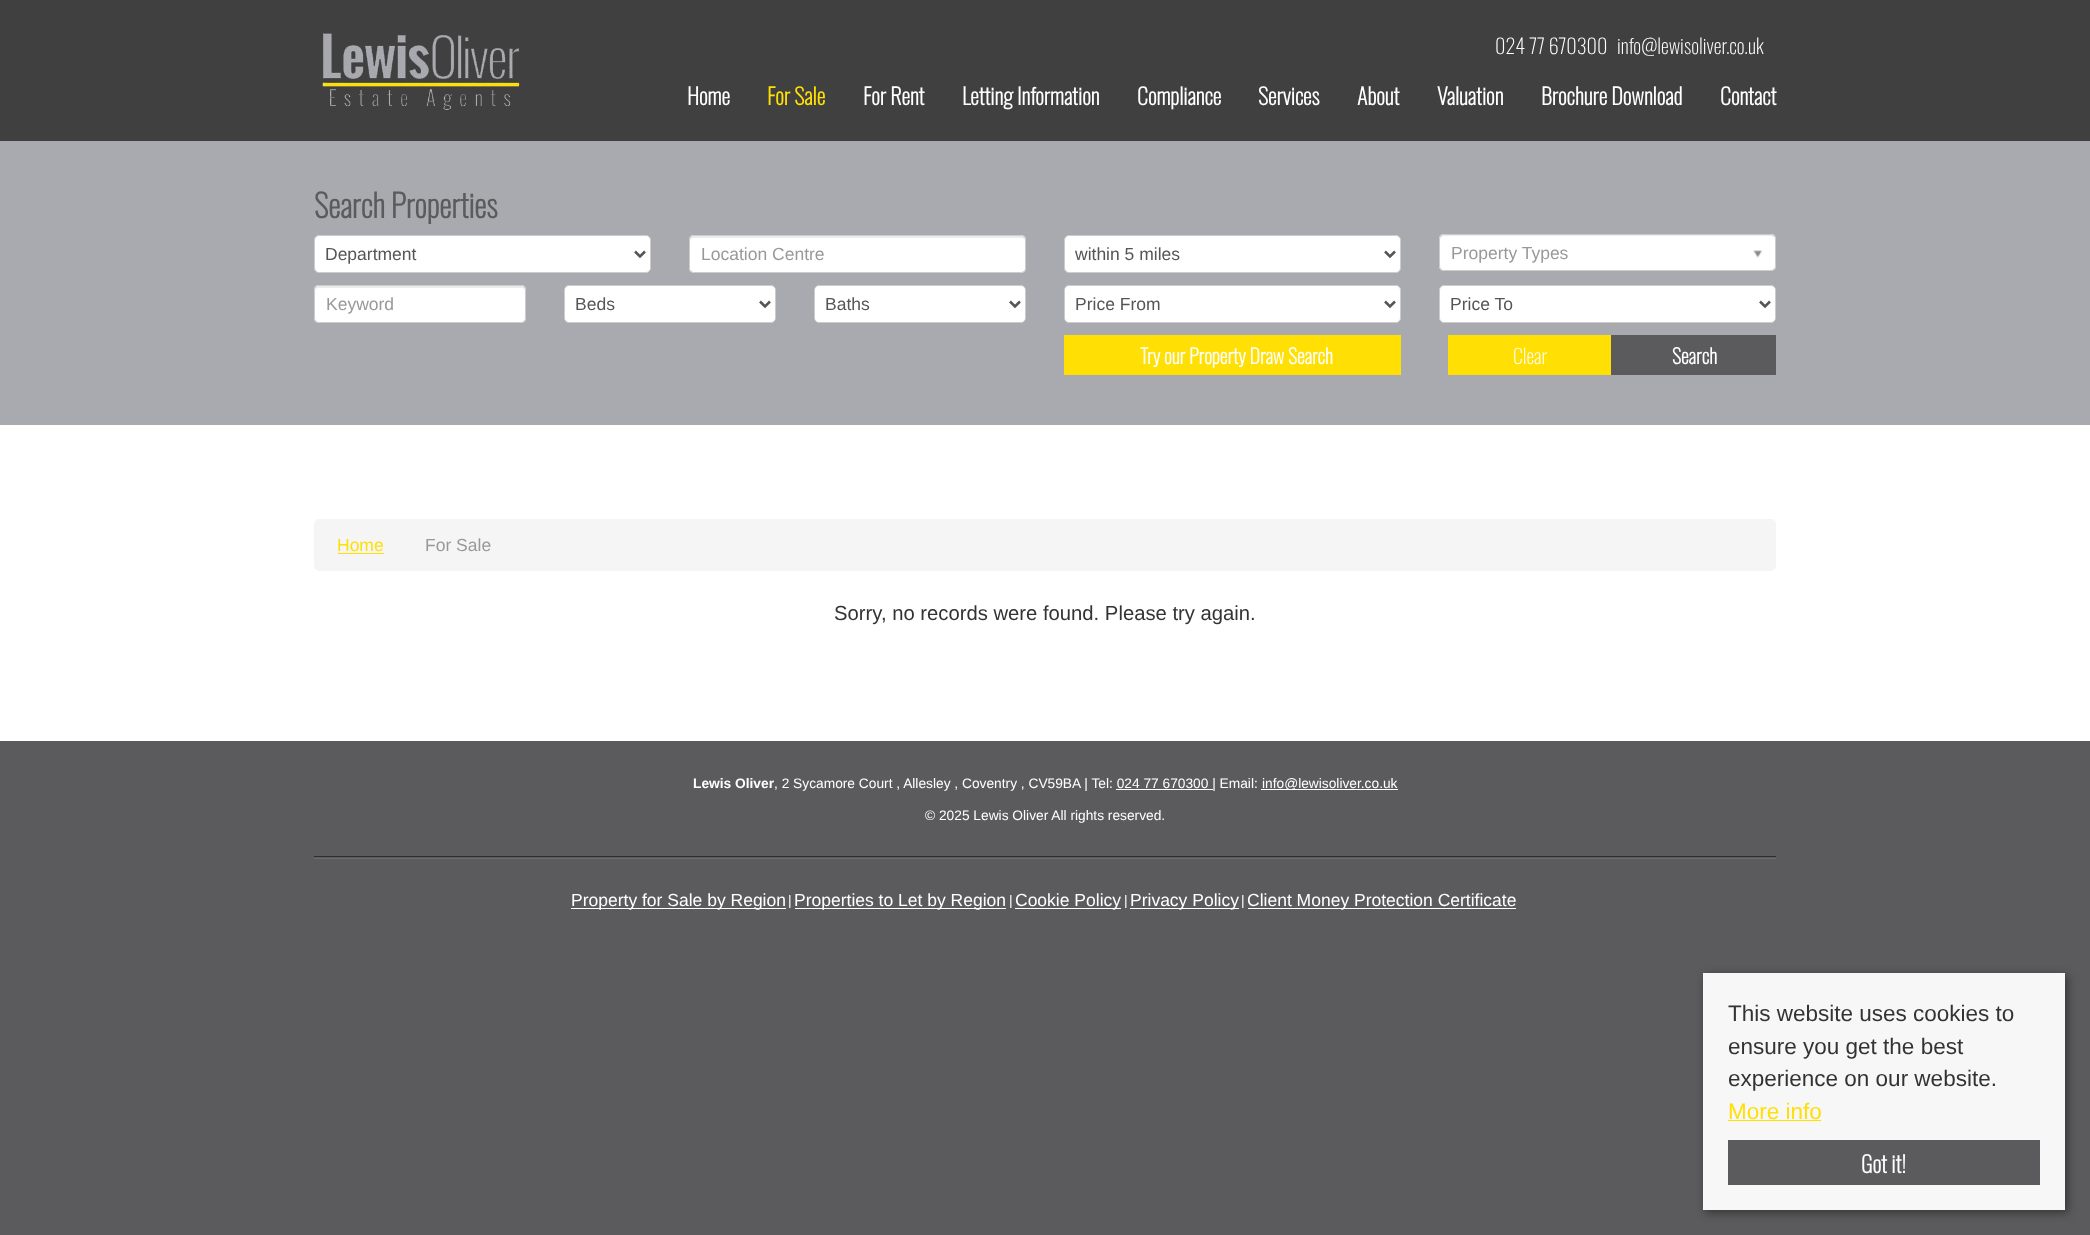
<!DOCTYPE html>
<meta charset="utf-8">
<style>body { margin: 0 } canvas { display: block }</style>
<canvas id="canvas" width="2090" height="1235"></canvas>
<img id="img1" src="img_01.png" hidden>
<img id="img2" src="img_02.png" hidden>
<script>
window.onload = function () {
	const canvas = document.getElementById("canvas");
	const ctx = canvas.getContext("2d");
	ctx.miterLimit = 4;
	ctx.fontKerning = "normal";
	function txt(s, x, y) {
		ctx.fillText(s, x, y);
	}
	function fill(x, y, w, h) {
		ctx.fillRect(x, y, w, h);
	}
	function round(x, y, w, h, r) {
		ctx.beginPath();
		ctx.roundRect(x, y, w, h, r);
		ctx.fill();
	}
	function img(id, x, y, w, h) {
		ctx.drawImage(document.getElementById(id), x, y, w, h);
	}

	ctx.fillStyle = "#5B5B5D";
	fill(0, 0, 2090, 1235);
	ctx.fillStyle = "#404041";
	fill(0, 0, 2090, 141);
	img("img1", 322, 33, 198, 77);
	ctx.fillStyle = "#A9AAAF";
	fill(0, 141, 2090, 284);
	ctx.fillStyle = "#FFFFFF";
	ctx.beginPath();
	ctx.roundRect(314.5, 235.5, 336, 37, 4.5);
	ctx.fill();
	ctx.strokeStyle = "#CCCCCC";
	ctx.stroke();
	ctx.beginPath();
	ctx.moveTo(635, 251.5);
	ctx.lineTo(640, 256.5);
	ctx.lineTo(645, 251.5);
	ctx.strokeStyle = "#555555";
	ctx.lineWidth = 2.5;
	ctx.stroke();
	round(689, 235, 337, 38, 5);
	ctx.fillStyle = "#ECECEC";
	ctx.beginPath();
	ctx.moveTo(694, 238);
	ctx.lineTo(1021, 238);
	ctx.bezierCurveTo(1023, 238, 1025, 239, 1025, 241);
	ctx.bezierCurveTo(1025, 238, 1024, 236, 1021, 236);
	ctx.lineTo(694, 236);
	ctx.bezierCurveTo(691, 236, 690, 238, 690, 241);
	ctx.bezierCurveTo(690, 239, 692, 238, 694, 238);
	ctx.closePath();
	ctx.fill();
	ctx.beginPath();
	ctx.roundRect(689.5, 235.5, 336, 37, 4.5);
	ctx.strokeStyle = "#CCCCCC";
	ctx.lineWidth = 1;
	ctx.stroke();
	ctx.fillStyle = "#FFFFFF";
	ctx.beginPath();
	ctx.roundRect(1064.5, 235.5, 336, 37, 4.5);
	ctx.fill();
	ctx.stroke();
	ctx.beginPath();
	ctx.moveTo(1385, 251.5);
	ctx.lineTo(1390, 256.5);
	ctx.lineTo(1395, 251.5);
	ctx.strokeStyle = "#555555";
	ctx.lineWidth = 2.5;
	ctx.stroke();
	round(1439, 234, 337, 37, 5);
	ctx.fillStyle = "#ECECEC";
	ctx.beginPath();
	ctx.moveTo(1444, 236);
	ctx.lineTo(1771, 236);
	ctx.bezierCurveTo(1773, 236, 1775, 238, 1775, 240);
	ctx.bezierCurveTo(1775, 237, 1774, 235, 1771, 235);
	ctx.lineTo(1444, 235);
	ctx.bezierCurveTo(1441, 235, 1440, 237, 1440, 240);
	ctx.bezierCurveTo(1440, 238, 1442, 236, 1444, 236);
	ctx.closePath();
	ctx.fill();
	ctx.beginPath();
	ctx.roundRect(1439.5, 234.5, 336, 36, 4.5);
	ctx.strokeStyle = "#CCCCCC";
	ctx.lineWidth = 1;
	ctx.stroke();
	img("img2", 1753, 250, 10, 8);
	ctx.fillStyle = "#FFFFFF";
	round(314, 285, 212, 38, 5);
	ctx.fillStyle = "#ECECEC";
	ctx.beginPath();
	ctx.moveTo(319, 288);
	ctx.lineTo(521, 288);
	ctx.bezierCurveTo(523, 288, 525, 289, 525, 291);
	ctx.lineTo(525, 290);
	ctx.bezierCurveTo(525, 288, 523, 286, 521, 286);
	ctx.lineTo(319, 286);
	ctx.bezierCurveTo(317, 286, 315, 288, 315, 290);
	ctx.lineTo(315, 291);
	ctx.bezierCurveTo(315, 289, 317, 288, 319, 288);
	ctx.closePath();
	ctx.fill();
	ctx.beginPath();
	ctx.roundRect(314.5, 285.5, 211, 37, 4.5);
	ctx.stroke();
	ctx.fillStyle = "#FFFFFF";
	ctx.beginPath();
	ctx.roundRect(564.5, 285.5, 211, 37, 4.5);
	ctx.fill();
	ctx.stroke();
	ctx.beginPath();
	ctx.moveTo(760, 301.5);
	ctx.lineTo(765, 306.5);
	ctx.lineTo(770, 301.5);
	ctx.strokeStyle = "#555555";
	ctx.lineWidth = 2.5;
	ctx.stroke();
	ctx.beginPath();
	ctx.roundRect(814.5, 285.5, 211, 37, 4.5);
	ctx.fill();
	ctx.strokeStyle = "#CCCCCC";
	ctx.lineWidth = 1;
	ctx.stroke();
	ctx.beginPath();
	ctx.moveTo(1010, 301.5);
	ctx.lineTo(1015, 306.5);
	ctx.lineTo(1020, 301.5);
	ctx.strokeStyle = "#555555";
	ctx.lineWidth = 2.5;
	ctx.stroke();
	ctx.beginPath();
	ctx.roundRect(1064.5, 285.5, 336, 37, 4.5);
	ctx.fill();
	ctx.strokeStyle = "#CCCCCC";
	ctx.lineWidth = 1;
	ctx.stroke();
	ctx.beginPath();
	ctx.moveTo(1385, 301.5);
	ctx.lineTo(1390, 306.5);
	ctx.lineTo(1395, 301.5);
	ctx.strokeStyle = "#555555";
	ctx.lineWidth = 2.5;
	ctx.stroke();
	ctx.beginPath();
	ctx.roundRect(1439.5, 285.5, 336, 37, 4.5);
	ctx.fill();
	ctx.strokeStyle = "#CCCCCC";
	ctx.lineWidth = 1;
	ctx.stroke();
	ctx.beginPath();
	ctx.moveTo(1760, 301.5);
	ctx.lineTo(1765, 306.5);
	ctx.lineTo(1770, 301.5);
	ctx.strokeStyle = "#555555";
	ctx.lineWidth = 2.5;
	ctx.stroke();
	ctx.fillStyle = "#FFDF04";
	fill(1064, 335, 337, 40);
	fill(1448, 335, 163, 40);
	ctx.fillStyle = "#5B5B5D";
	fill(1611, 335, 165, 40);
	ctx.fillStyle = "#FFFFFF";
	fill(0, 425, 2090, 316);
	ctx.fillStyle = "#F5F5F5";
	round(314, 519, 1462, 52, 5);
	ctx.fillStyle = "#FFDF04";
	fill(338, 553, 46, 1);
	ctx.fillStyle = "#FFFFFF";
	fill(1261, 789, 137, 1);
	fill(1116, 789, 97, 1);
	ctx.fillStyle = "#2E2E2F";
	fill(314, 856, 1462, 1);
	ctx.fillStyle = "#6B6B6D";
	fill(314, 858, 1462, 1);
	ctx.fillStyle = "#FFFFFF";
	fill(571, 908, 215, 1);
	fill(795, 908, 211, 1);
	fill(1015, 908, 106, 1);
	fill(1130, 908, 109, 1);
	fill(1248, 908, 268, 1);
	ctx.fillStyle = "rgba(0, 0, 0, 0.4)";
	ctx.filter = "blur(4.5px)";
	ctx.beginPath();
	ctx.rect(1705, 975, 363, 238);
	ctx.fill();
	ctx.filter = "none";
	ctx.fillStyle = "#F7F7F7";
	fill(1703, 973, 362, 237);
	ctx.fillStyle = "#FFDF04";
	fill(1728, 1120, 93, 1);
	ctx.fillStyle = "#5B5B5D";
	fill(1728, 1140, 312, 45);
	ctx.font = "200 20.25px Oswald";
	ctx.fillStyle = "#FFFFFF";
	txt("024 77 670300", 1495, 54);
	txt("info@lewisoliver.co.uk", 1617, 54);
	ctx.font = "bold 22.25px Oswald";
	txt("Home", 687, 105);
	ctx.fillStyle = "#FFDF04";
	txt("For Sale", 767, 105);
	ctx.fillStyle = "#FFFFFF";
	txt("For Rent", 863, 105);
	txt("Letting Information", 962, 105);
	txt("Compliance", 1137, 105);
	txt("Services", 1258, 105);
	txt("About", 1357, 105);
	txt("Valuation", 1437, 105);
	txt("Brochure Download", 1541, 105);
	txt("Contact", 1720, 105);
	ctx.font = "bold 31.5px Oswald";
	ctx.fillStyle = "#5B5B5D";
	txt("Search Properties", 314, 218);
	ctx.font = "17.5px Liberation Sans";
	ctx.fillStyle = "#555555";
	txt("Department", 325, 260);
	ctx.fillStyle = "#999999";
	txt("Location Centre", 701, 260);
	ctx.fillStyle = "#555555";
	txt("within 5 miles", 1075, 260);
	ctx.fillStyle = "#999999";
	txt("Property Types", 1451, 259);
	txt("Keyword", 326, 310);
	ctx.fillStyle = "#555555";
	txt("Beds", 575, 310);
	txt("Baths", 825, 310);
	txt("Price From", 1075, 310);
	txt("Price To", 1450, 310);
	ctx.font = "bold 20px Oswald";
	ctx.fillStyle = "#FFFFFF";
	txt("Try our Property Draw Search", 1140, 364);
	ctx.font = "200 20px Oswald";
	txt("Clear", 1513, 364);
	ctx.font = "bold 20px Oswald";
	txt("Search", 1672, 364);
	ctx.font = "17.5px Liberation Sans";
	ctx.fillStyle = "#FFDF04";
	txt("Home", 337, 551);
	ctx.fillStyle = "#999999";
	txt("For Sale", 425, 551);
	ctx.font = "20.25px Liberation Sans";
	ctx.fillStyle = "#333333";
	txt("Sorry, no records were found. Please try again.", 834, 620);
	ctx.font = "bold 13.75px Liberation Sans";
	ctx.fillStyle = "#FFFFFF";
	txt("Lewis Oliver", 693, 788);
	ctx.font = "13.75px Liberation Sans";
	txt(", 2 Sycamore Court , Allesley , Coventry , CV59BA | Tel: 024 77 670300 | Email:", 774, 788);
	txt("info@lewisoliver.co.uk", 1262, 788);
	txt("© 2025 Lewis Oliver All rights reserved.", 925, 820);
	ctx.font = "17.5px Liberation Sans";
	txt("Property for Sale by Region", 571, 906);
	ctx.font = "13.75px Liberation Sans";
	txt("|", 788, 905);
	ctx.font = "17.5px Liberation Sans";
	txt("Properties to Let by Region", 794, 906);
	ctx.font = "13.75px Liberation Sans";
	txt("|", 1009, 905);
	ctx.font = "17.5px Liberation Sans";
	txt("Cookie Policy", 1015, 906);
	ctx.font = "13.75px Liberation Sans";
	txt("|", 1124, 905);
	ctx.font = "17.5px Liberation Sans";
	txt("Privacy Policy", 1130, 906);
	ctx.font = "13.75px Liberation Sans";
	txt("|", 1241, 905);
	ctx.font = "17.5px Liberation Sans";
	txt("Client Money Protection Certificate", 1247, 906);
	ctx.font = "22.5px Liberation Sans";
	ctx.fillStyle = "#333333";
	txt("This website uses cookies to", 1728, 1021);
	txt("ensure you get the best", 1728, 1054);
	txt("experience on our website.", 1728, 1086);
	ctx.fillStyle = "#FFDF04";
	txt("More info", 1728, 1119);
	ctx.font = "bold 22.5px Oswald";
	ctx.fillStyle = "#FFFFFF";
	txt("Got it!", 1861, 1173);
};
</script>
